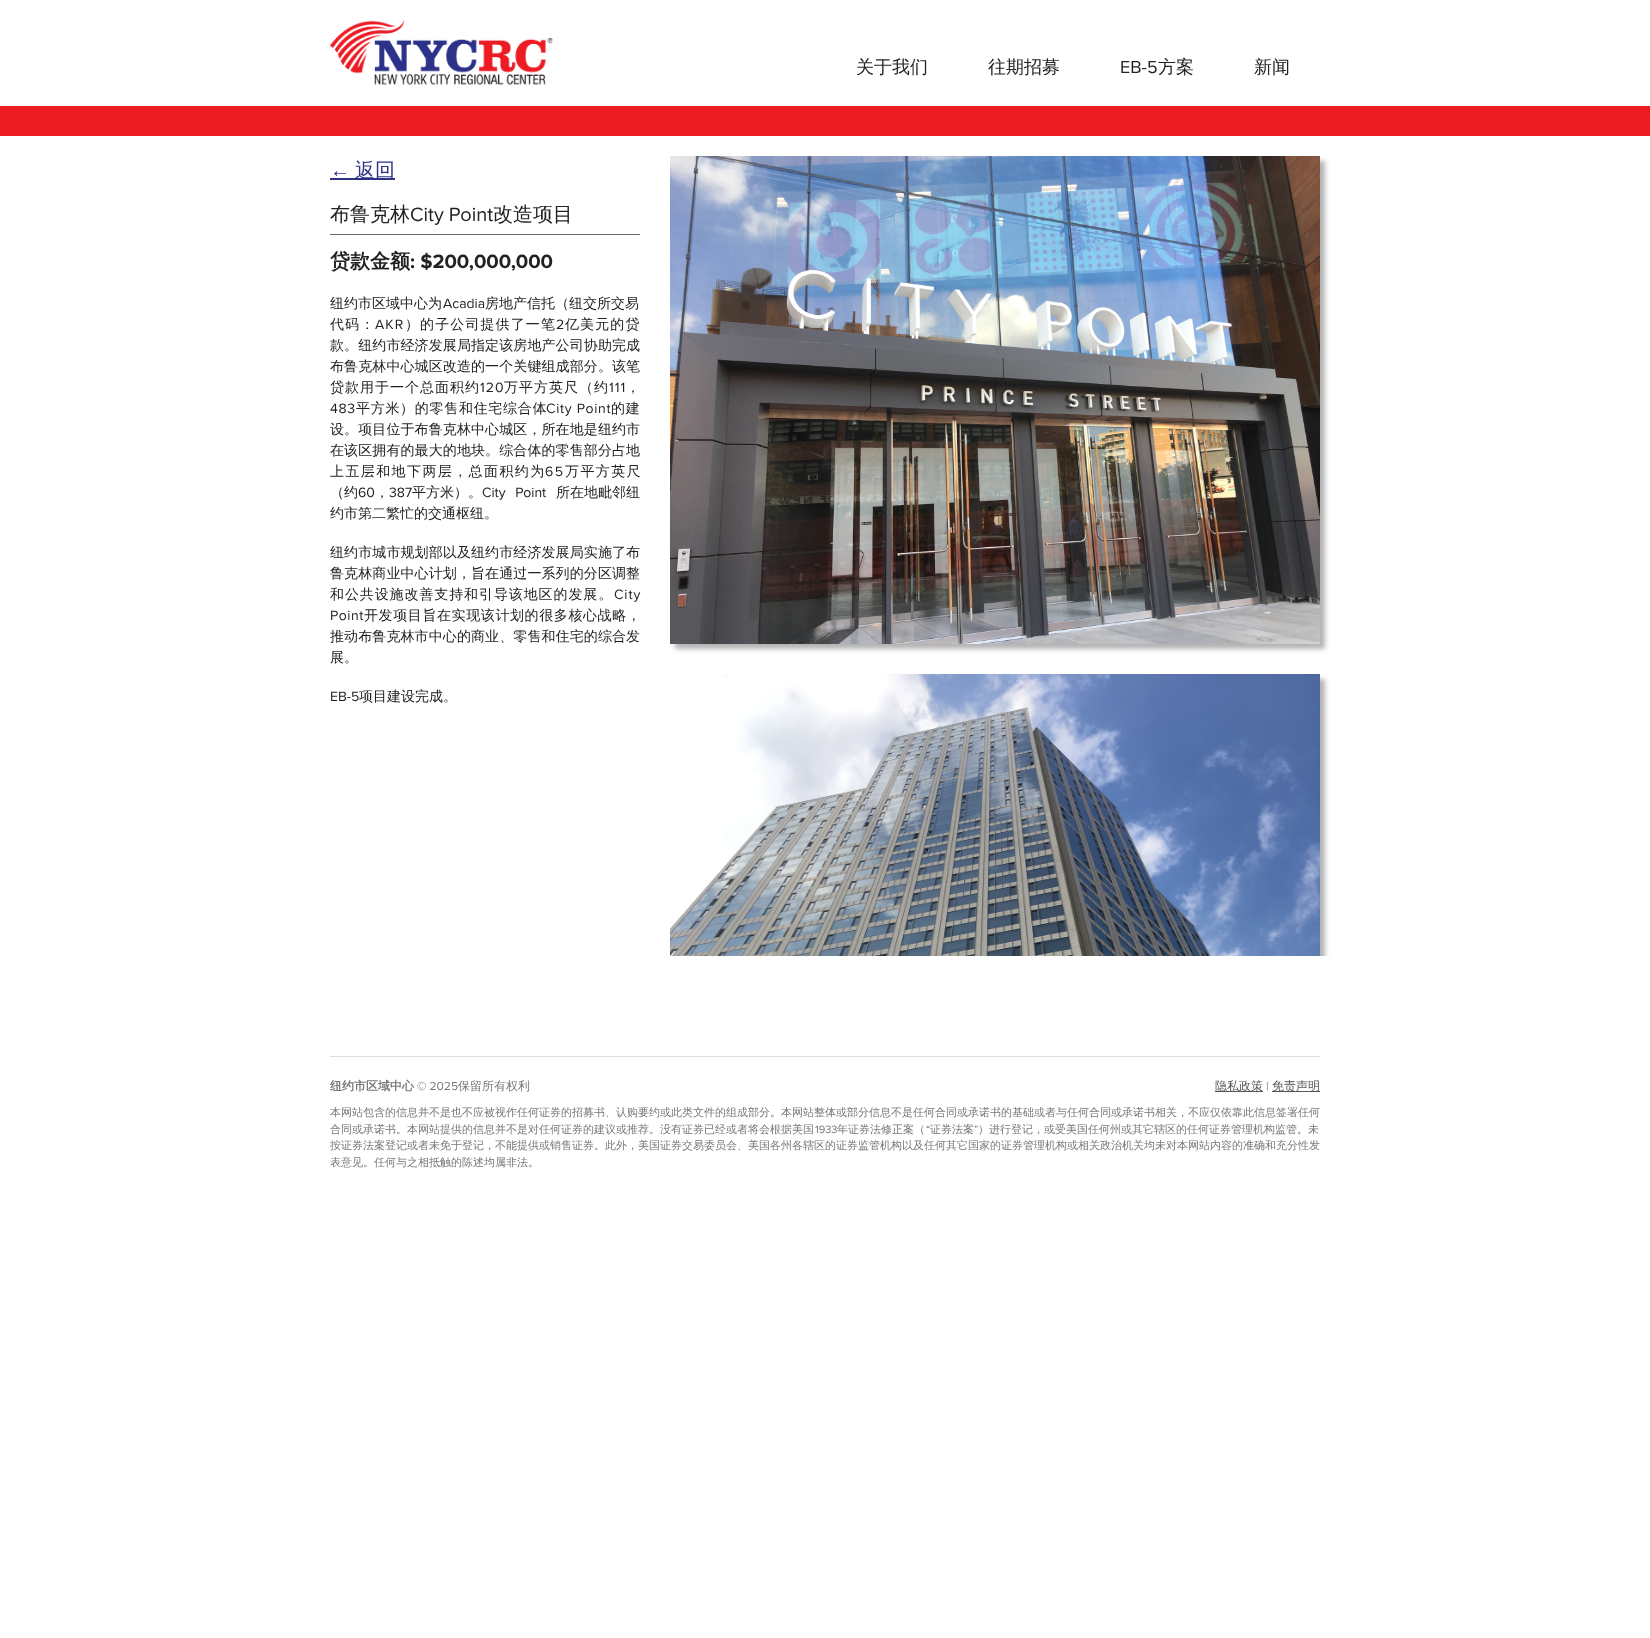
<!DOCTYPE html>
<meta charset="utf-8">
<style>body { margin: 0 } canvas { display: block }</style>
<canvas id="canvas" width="1650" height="1638"></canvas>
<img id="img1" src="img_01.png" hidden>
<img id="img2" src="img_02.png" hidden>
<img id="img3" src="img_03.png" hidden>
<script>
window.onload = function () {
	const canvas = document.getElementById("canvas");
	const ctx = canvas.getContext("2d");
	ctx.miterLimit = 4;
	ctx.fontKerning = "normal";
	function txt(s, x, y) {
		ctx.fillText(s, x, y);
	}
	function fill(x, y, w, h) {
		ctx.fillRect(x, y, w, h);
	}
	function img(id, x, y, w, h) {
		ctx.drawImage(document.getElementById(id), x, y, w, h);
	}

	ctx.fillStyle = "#FFFFFF";
	fill(0, 0, 1650, 1638);
	img("img1", 330, 20, 223, 65);
	ctx.fillStyle = "#EC1B22";
	fill(0, 106, 1650, 30);
	ctx.fillStyle = "#2D3287";
	fill(330, 178, 65, 2);
	ctx.fillStyle = "#666666";
	fill(330, 234, 310, 1);
	ctx.fillStyle = "#B3B3B3";
	ctx.filter = "blur(2.5px)";
	ctx.beginPath();
	ctx.rect(675, 161, 650, 488);
	ctx.fill();
	ctx.filter = "none";
	img("img2", 670, 156, 650, 488);
	ctx.fillStyle = "#DDDDDD";
	fill(330, 1056, 990, 1);
	ctx.fillStyle = "#555555";
	fill(1215, 1091, 48, 1);
	fill(1272, 1091, 48, 1);
	ctx.save();
	ctx.beginPath();
	ctx.rect(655, 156, 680, 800);
	ctx.clip();
	ctx.fillStyle = "#B3B3B3";
	ctx.filter = "blur(2.5px)";
	ctx.beginPath();
	ctx.rect(675, 679, 650, 866);
	ctx.fill();
	ctx.filter = "none";
	ctx.restore();
	img("img3", 670, 674, 650, 282);
	ctx.font = "500 18px WenQuanYi Zen Hei";
	ctx.fillStyle = "#222222";
	txt("关于我们", 856, 73);
	txt("往期招募", 988, 73);
	ctx.font = "18px Proxima Nova";
	txt("EB-5", 1120, 73);
	ctx.font = "500 18px WenQuanYi Zen Hei";
	txt("方案", 1158, 73);
	txt("新闻", 1254, 73);
	ctx.font = "20px Liberation Sans";
	ctx.fillStyle = "#2D3287";
	txt("←", 330, 177);
	ctx.font = "500 20px WenQuanYi Zen Hei";
	txt("返回", 355, 177);
	ctx.fillStyle = "#222222";
	txt("布鲁克林", 330, 221);
	ctx.font = "20px Proxima Nova";
	txt("City Point", 410, 221);
	ctx.font = "500 20px WenQuanYi Zen Hei";
	txt("改造项目", 493, 221);
	ctx.font = "bold 20px WenQuanYi Zen Hei";
	txt("贷款金额", 330, 268);
	ctx.font = "bold 20px Proxima Nova";
	txt(": $200,000,000", 410, 268);
	ctx.font = "500 14px WenQuanYi Zen Hei";
	txt("纽约市区域中心为", 330, 308);
	ctx.font = "14px Proxima Nova";
	txt("Acadia", 443, 308);
	ctx.font = "500 14px WenQuanYi Zen Hei";
	txt("房地产信托（纽交所交易", 485, 308);
	ctx.letterSpacing = "1.1px";
	txt("代码：", 330, 329);
	ctx.font = "14px Proxima Nova";
	txt("AKR", 375, 329);
	ctx.font = "500 14px WenQuanYi Zen Hei";
	txt("）的子公司提供了一笔", 405, 329);
	ctx.font = "14px Proxima Nova";
	txt("2", 556, 329);
	ctx.font = "500 14px WenQuanYi Zen Hei";
	txt("亿美元的贷", 565, 329);
	ctx.letterSpacing = "0.1px";
	txt("款。纽约市经济发展局指定该房地产公司协助完成", 330, 350);
	txt("布鲁克林中心城区改造的一个关键组成部分。该笔", 330, 371);
	ctx.letterSpacing = "1px";
	txt("贷款用于一个总面积约", 330, 392);
	ctx.font = "14px Proxima Nova";
	txt("120", 480, 392);
	ctx.font = "500 14px WenQuanYi Zen Hei";
	txt("万平方英尺（约", 504, 392);
	ctx.font = "14px Proxima Nova";
	txt("111", 609, 392);
	ctx.font = "500 14px WenQuanYi Zen Hei";
	txt("，", 626, 392);
	ctx.letterSpacing = "0.7px";
	ctx.font = "14px Proxima Nova";
	txt("483", 330, 413);
	ctx.font = "500 14px WenQuanYi Zen Hei";
	txt("平方米）的零售和住宅综合体", 356, 413);
	ctx.font = "14px Proxima Nova";
	txt("City Point", 546, 413);
	ctx.font = "500 14px WenQuanYi Zen Hei";
	txt("的建", 611, 413);
	ctx.letterSpacing = "0.1px";
	txt("设。项目位于布鲁克林中心城区，所在地是纽约市", 330, 434);
	txt("在该区拥有的最大的地块。综合体的零售部分占地", 330, 455);
	ctx.letterSpacing = "1.4px";
	txt("上五层和地下两层，总面积约为", 330, 476);
	ctx.font = "14px Proxima Nova";
	txt("65", 545, 476);
	ctx.font = "500 14px WenQuanYi Zen Hei";
	txt("万平方英尺", 565, 476);
	ctx.letterSpacing = "0px";
	txt("（约", 330, 497);
	ctx.font = "14px Proxima Nova";
	txt("60", 358, 497);
	ctx.font = "500 14px WenQuanYi Zen Hei";
	txt("，", 375, 497);
	ctx.font = "14px Proxima Nova";
	txt("387", 389, 497);
	ctx.font = "500 14px WenQuanYi Zen Hei";
	txt("平方米）。", 412, 497);
	ctx.wordSpacing = "6px";
	ctx.font = "14px Proxima Nova";
	txt("City Point", 482, 497);
	ctx.wordSpacing = "0px";
	ctx.font = "500 14px WenQuanYi Zen Hei";
	txt("所在地毗邻纽", 556, 497);
	txt("约市第二繁忙的交通枢纽。", 330, 518);
	ctx.letterSpacing = "0.1px";
	txt("纽约市城市规划部以及纽约市经济发展局实施了布", 330, 557);
	txt("鲁克林商业中心计划，旨在通过一系列的分区调整", 330, 578);
	ctx.letterSpacing = "0.9px";
	txt("和公共设施改善支持和引导该地区的发展。", 330, 599);
	ctx.font = "14px Proxima Nova";
	txt("City", 614, 599);
	ctx.letterSpacing = "0.6px";
	txt("Point", 330, 620);
	ctx.font = "500 14px WenQuanYi Zen Hei";
	txt("开发项目旨在实现该计划的很多核心战略，", 364, 620);
	ctx.letterSpacing = "0.1px";
	txt("推动布鲁克林市中心的商业、零售和住宅的综合发", 330, 641);
	ctx.letterSpacing = "0px";
	txt("展。", 330, 662);
	ctx.font = "14px Proxima Nova";
	txt("EB-5", 330, 701);
	ctx.font = "500 14px WenQuanYi Zen Hei";
	txt("项目建设完成。", 359, 701);
	ctx.font = "bold 12px WenQuanYi Zen Hei";
	ctx.fillStyle = "#777777";
	txt("纽约市区域中心", 330, 1090);
	ctx.font = "12px Proxima Nova";
	txt("© 2025", 417, 1090);
	ctx.font = "500 12px WenQuanYi Zen Hei";
	txt("保留所有权利", 458, 1090);
	ctx.fillStyle = "#555555";
	txt("隐私政策", 1215, 1090);
	ctx.font = "12px Proxima Nova";
	ctx.fillStyle = "#777777";
	txt("|", 1266, 1090);
	ctx.font = "500 12px WenQuanYi Zen Hei";
	ctx.fillStyle = "#555555";
	txt("免责声明", 1272, 1090);
	ctx.font = "500 11px WenQuanYi Zen Hei";
	ctx.fillStyle = "#777777";
	txt("本网站包含的信息并不是也不应被视作任何证券的招募书、认购要约或此类文件的组成部分。本网站整体或部分信息不是任何合同或承诺书的基础或者与任何合同或承诺书相关，不应仅依靠此信息签署任何", 330, 1116);
	txt("合同或承诺书。本网站提供的信息并不是对任何证券的建议或推荐。没有证券已经或者将会根据美国", 330, 1133);
	ctx.font = "11px Proxima Nova";
	txt("1933", 815, 1133);
	ctx.font = "500 11px WenQuanYi Zen Hei";
	txt("年证券法修正案（", 837, 1133);
	ctx.font = "11px Proxima Nova";
	txt("“", 926, 1133);
	ctx.font = "500 11px WenQuanYi Zen Hei";
	txt("证券法案", 930, 1133);
	ctx.font = "11px Proxima Nova";
	txt("”", 974, 1133);
	ctx.font = "500 11px WenQuanYi Zen Hei";
	txt("）进行登记，或受美国任何州或其它辖区的任何证券管理机构监管。未", 978, 1133);
	txt("按证券法案登记或者未免于登记，不能提供或销售证券。此外，美国证券交易委员会、美国各州各辖区的证券监管机构以及任何其它国家的证券管理机构或相关政治机关均未对本网站内容的准确和充分性发", 330, 1149);
	txt("表意见。任何与之相抵触的陈述均属非法。", 330, 1166);
};
</script>
